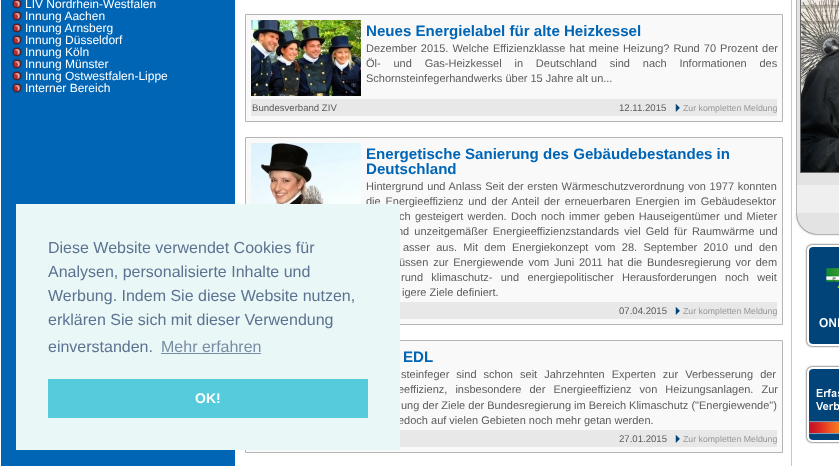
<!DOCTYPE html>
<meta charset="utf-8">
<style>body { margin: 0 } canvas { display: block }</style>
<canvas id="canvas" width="839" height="466"></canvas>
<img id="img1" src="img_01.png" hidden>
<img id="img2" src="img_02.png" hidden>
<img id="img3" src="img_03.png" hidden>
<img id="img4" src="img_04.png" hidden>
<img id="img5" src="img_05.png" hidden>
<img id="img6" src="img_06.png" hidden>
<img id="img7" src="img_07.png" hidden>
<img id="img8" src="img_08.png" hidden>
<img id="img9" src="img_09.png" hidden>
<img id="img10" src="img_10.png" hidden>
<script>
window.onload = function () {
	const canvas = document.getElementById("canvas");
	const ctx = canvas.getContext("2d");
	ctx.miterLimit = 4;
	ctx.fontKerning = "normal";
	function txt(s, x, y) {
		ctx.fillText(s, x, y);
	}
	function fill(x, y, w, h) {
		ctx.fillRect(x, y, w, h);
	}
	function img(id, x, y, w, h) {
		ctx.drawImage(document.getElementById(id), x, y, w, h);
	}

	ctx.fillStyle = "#FFFFFF";
	fill(0, 0, 839, 466);
	img("img1", 1, 0, 838, 466);
	img("img2", 11, 0, 12, 10);
	img("img3", 11, 10, 12, 12);
	img("img3", 11, 22, 12, 12);
	img("img3", 11, 34, 12, 12);
	img("img3", 11, 46, 12, 12);
	img("img3", 11, 58, 12, 12);
	img("img3", 11, 70, 12, 12);
	img("img3", 11, 82, 12, 12);
	ctx.fillStyle = "#F9F9F9";
	ctx.beginPath();
	ctx.rect(245.5, 14.5, 537, 107);
	ctx.fill();
	ctx.strokeStyle = "#B5B5B5";
	ctx.stroke();
	img("img4", 251, 20, 110, 76);
	ctx.fillStyle = "#E8E8E8";
	fill(251, 99, 526, 17);
	img("img5", 675, 104, 5, 8);
	ctx.fillStyle = "#F9F9F9";
	ctx.beginPath();
	ctx.rect(245.5, 137.5, 537, 187);
	ctx.fill();
	ctx.stroke();
	img("img6", 251, 143, 110, 61);
	ctx.fillStyle = "#E8E8E8";
	fill(400, 302, 377, 17);
	img("img5", 675, 307, 5, 8);
	ctx.fillStyle = "#F9F9F9";
	ctx.beginPath();
	ctx.rect(245.5, 340.5, 537, 112);
	ctx.fill();
	ctx.stroke();
	ctx.fillStyle = "#E8E8E8";
	fill(400, 430, 377, 17);
	img("img5", 675, 435, 5, 8);
	ctx.fillStyle = "#E3E3E3";
	fill(797, 0, 42, 185);
	ctx.fillStyle = "#B4B4B4";
	fill(796, 0, 1, 213);
	ctx.strokeStyle = "#666666";
	ctx.strokeRect(800.5, -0.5, 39, 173);
	img("img7", 801, 0, 38, 172);
	ctx.fillStyle = "#EFEFEF";
	fill(797, 185, 42, 28);
	img("img8", 794, 213, 45, 23);
	img("img9", 804, 243, 35, 105);
	img("img10", 804, 365, 35, 79);
	ctx.font = "12px Liberation Sans";
	ctx.fillStyle = "#FFFFFF";
	txt("LIV Nordrhein-Westfalen", 25, 8);
	txt("Innung Aachen", 25, 20);
	txt("Innung Arnsberg", 25, 32);
	txt("Innung Düsseldorf", 25, 44);
	txt("Innung Köln", 25, 56);
	txt("Innung Münster", 25, 68);
	txt("Innung Ostwestfalen-Lippe", 25, 80);
	txt("Interner Bereich", 25, 92);
	ctx.font = "bold 15.1px Liberation Sans";
	ctx.fillStyle = "#0065B5";
	txt("Neues Energielabel für alte Heizkessel", 366, 36);
	ctx.wordSpacing = "1px";
	ctx.font = "11px Liberation Sans";
	ctx.fillStyle = "#5C5C5C";
	txt("Dezember 2015. Welche Effizienzklasse hat meine Heizung? Rund 70 Prozent der", 366, 52);
	ctx.wordSpacing = "9.75px";
	txt("Öl- und Gas-Heizkessel in Deutschland sind nach Informationen des", 366, 67);
	ctx.wordSpacing = "0px";
	txt("Schornsteinfegerhandwerks über 15 Jahre alt un...", 366, 82);
	ctx.font = "9.6px Liberation Sans";
	txt("Bundesverband ZIV", 252, 111);
	txt("12.11.2015", 619, 111);
	ctx.font = "8.75px Liberation Sans";
	ctx.fillStyle = "#969696";
	txt("Zur kompletten Meldung", 683, 111);
	ctx.font = "bold 15.1px Liberation Sans";
	ctx.fillStyle = "#0065B5";
	txt("Energetische Sanierung des Gebäudebestandes in", 366, 159);
	txt("Deutschland", 366, 174);
	ctx.wordSpacing = "0.6px";
	ctx.font = "11px Liberation Sans";
	ctx.fillStyle = "#5C5C5C";
	txt("Hintergrund und Anlass Seit der ersten Wärmeschutzverordnung von 1977 konnten", 366, 190);
	ctx.wordSpacing = "1.75px";
	txt("die Energieeffizienz und der Anteil der erneuerbaren Energien im Gebäudesektor", 366, 205);
	ctx.wordSpacing = "1.25px";
	txt("ch gesteigert werden. Doch noch immer geben Hauseigentümer und Mieter", 399, 220);
	ctx.wordSpacing = "2px";
	txt("nd unzeitgemäßer Energieeffizienzstandards viel Geld für Raumwärme und", 397, 235);
	ctx.wordSpacing = "3.25px";
	txt("asser aus. Mit dem Energiekonzept vom 28. September 2010 und den", 403, 251);
	ctx.wordSpacing = "1.75px";
	txt("üssen zur Energiewende vom Juni 2011 hat die Bundesregierung vor dem", 399, 266);
	ctx.wordSpacing = "5.25px";
	txt("rund klimaschutz- und energiepolitischer Herausforderungen noch weit", 401, 281);
	ctx.wordSpacing = "0px";
	txt("igere Ziele definiert.", 402, 296);
	ctx.font = "9.6px Liberation Sans";
	txt("07.04.2015", 619, 314);
	ctx.font = "8.75px Liberation Sans";
	ctx.fillStyle = "#969696";
	txt("Zur kompletten Meldung", 683, 314);
	ctx.font = "bold 15.1px Liberation Sans";
	ctx.fillStyle = "#0065B5";
	txt("EDL", 403, 362);
	ctx.wordSpacing = "4px";
	ctx.font = "11px Liberation Sans";
	ctx.fillStyle = "#5C5C5C";
	txt("steinfeger sind schon seit Jahrzehnten Experten zur Verbesserung der", 401, 378);
	ctx.wordSpacing = "5px";
	txt("eeffizienz, insbesondere der Energieeffizienz von Heizungsanlagen. Zur", 398, 393);
	ctx.wordSpacing = "0px";
	txt("ung der Ziele der Bundesregierung im Bereich Klimaschutz (\"Energiewende\")", 401, 409);
	txt("edoch auf vielen Gebieten noch mehr getan werden.", 398, 424);
	ctx.font = "9.6px Liberation Sans";
	txt("27.01.2015", 619, 442);
	ctx.font = "8.75px Liberation Sans";
	ctx.fillStyle = "#969696";
	txt("Zur kompletten Meldung", 683, 442);
	ctx.fillStyle = "#EAF7F7";
	fill(16, 204, 384, 246);
	ctx.font = "16px Liberation Sans";
	ctx.fillStyle = "#5C7291";
	txt("Diese Website verwendet Cookies für", 48, 253);
	txt("Analysen, personalisierte Inhalte und", 48, 277);
	txt("Werbung. Indem Sie diese Website nutzen,", 48, 301);
	txt("erklären Sie sich mit dieser Verwendung", 48, 325);
	txt("einverstanden.", 48, 352);
	ctx.fillStyle = "#788DA5";
	txt("Mehr erfahren", 161, 352);
	fill(161, 353, 100, 1);
	ctx.fillStyle = "#56CBDB";
	fill(48, 379, 320, 39);
	ctx.font = "bold 14px Liberation Sans";
	ctx.fillStyle = "#FFFFFF";
	txt("OK!", 195, 403);
};
</script>
